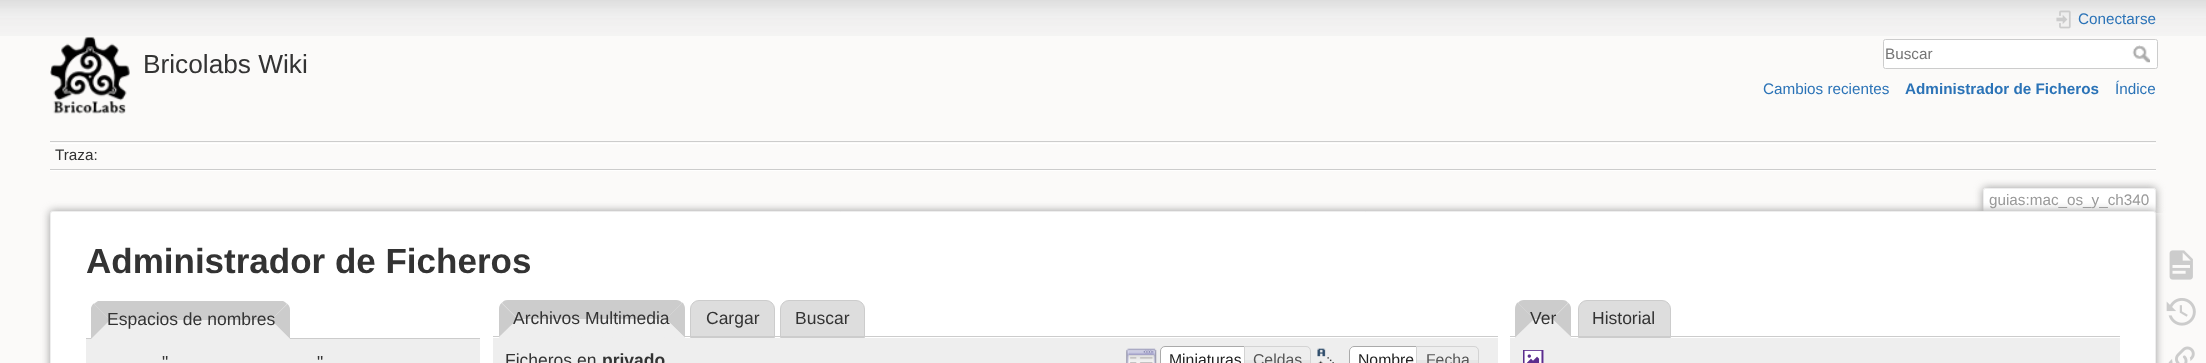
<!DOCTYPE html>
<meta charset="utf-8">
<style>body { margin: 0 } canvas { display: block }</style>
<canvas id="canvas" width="2206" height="363"></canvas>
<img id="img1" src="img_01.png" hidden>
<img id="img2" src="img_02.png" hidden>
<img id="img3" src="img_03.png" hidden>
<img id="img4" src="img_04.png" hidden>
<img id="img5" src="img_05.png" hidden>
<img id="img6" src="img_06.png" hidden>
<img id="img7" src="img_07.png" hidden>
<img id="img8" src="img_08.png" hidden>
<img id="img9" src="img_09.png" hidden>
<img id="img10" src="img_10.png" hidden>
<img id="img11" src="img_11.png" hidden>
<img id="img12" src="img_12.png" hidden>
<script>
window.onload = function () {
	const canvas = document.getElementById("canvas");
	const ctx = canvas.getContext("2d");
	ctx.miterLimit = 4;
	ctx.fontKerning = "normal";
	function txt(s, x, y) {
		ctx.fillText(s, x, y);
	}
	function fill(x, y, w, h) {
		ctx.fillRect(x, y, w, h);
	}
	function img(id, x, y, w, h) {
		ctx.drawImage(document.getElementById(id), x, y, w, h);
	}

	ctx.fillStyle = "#FBFAF9";
	fill(0, 0, 2206, 363);
	img("img1", 0, 0, 2206, 36);
	img("img2", 50, 36, 80, 78);
	img("img3", 2056, 10, 15, 19);
	ctx.fillStyle = "#FFFFFF";
	ctx.beginPath();
	ctx.roundRect(1883.5, 39.5, 274, 29, 2);
	ctx.fill();
	ctx.strokeStyle = "#CCCCCC";
	ctx.stroke();
	img("img4", 2132, 45, 18, 18);
	ctx.fillStyle = "#CCCCCC";
	fill(50, 141, 2106, 1);
	ctx.fillStyle = "#FFFFFF";
	fill(50, 170, 2106, 1);
	fill(50, 143, 2106, 1);
	ctx.fillStyle = "#CCCCCC";
	fill(50, 169, 2106, 1);
	ctx.save();
	ctx.beginPath();
	ctx.rect(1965, 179, 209, 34);
	ctx.clip();
	ctx.fillStyle = "#999999";
	ctx.filter = "blur(4px)";
	ctx.beginPath();
	ctx.roundRect(1983, 188, 173, 25, 2.5);
	ctx.fill();
	ctx.filter = "none";
	ctx.restore();
	ctx.fillStyle = "#FFFFFF";
	ctx.beginPath();
	ctx.roundRect(1984, 189, 171, 24, [1, 1, 0, 0]);
	ctx.fill();
	ctx.fillStyle = "#EEEEEE";
	fill(1984, 188, 171, 1);
	fill(2155, 189, 1, 24);
	fill(1983, 189, 1, 24);
	ctx.fillStyle = "#999999";
	ctx.filter = "blur(4.5px)";
	ctx.beginPath();
	ctx.roundRect(50, 211, 2106, 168, 2.5);
	ctx.fill();
	ctx.filter = "none";
	ctx.fillStyle = "#FFFFFF";
	ctx.beginPath();
	ctx.roundRect(50.5, 211.5, 2105, 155, 2);
	ctx.fill();
	ctx.strokeStyle = "#EEEEEE";
	ctx.stroke();
	ctx.fillStyle = "#CCCCCC";
	fill(86, 338, 394, 1);
	ctx.fillStyle = "#EEEEEE";
	ctx.beginPath();
	ctx.roundRect(91, 301, 199, 38, [9, 9, 0, 0]);
	ctx.fill();
	ctx.fillStyle = "#CCCCCC";
	ctx.beginPath();
	ctx.moveTo(283, 301);
	ctx.lineTo(98, 301);
	ctx.lineTo(94, 304);
	ctx.lineTo(110, 320);
	ctx.lineTo(271, 320);
	ctx.lineTo(287, 304);
	ctx.bezierCurveTo(286, 303, 285, 302, 283, 301);
	ctx.closePath();
	ctx.fill();
	ctx.beginPath();
	ctx.moveTo(287.5, 304);
	ctx.lineTo(271, 320);
	ctx.lineTo(290, 339);
	ctx.lineTo(290, 310);
	ctx.bezierCurveTo(290, 307.5, 289, 305.5, 287.5, 304);
	ctx.closePath();
	ctx.fill();
	ctx.fillStyle = "#EEEEEE";
	ctx.beginPath();
	ctx.moveTo(290, 339);
	ctx.lineTo(271, 320);
	ctx.lineTo(110, 320);
	ctx.lineTo(91, 339);
	ctx.closePath();
	ctx.fill();
	ctx.fillStyle = "#CCCCCC";
	ctx.beginPath();
	ctx.moveTo(91, 339);
	ctx.lineTo(110, 320);
	ctx.lineTo(93.5, 303.5);
	ctx.bezierCurveTo(92.5, 305, 91.5, 306, 91, 308);
	ctx.closePath();
	ctx.fill();
	ctx.fillStyle = "#EEEEEE";
	fill(86, 339, 394, 24);
	ctx.fillStyle = "#DDDDDD";
	ctx.beginPath();
	ctx.roundRect(690.5, 300.5, 84, 37, [8.5, 8.5, 0, 0]);
	ctx.fill();
	ctx.strokeStyle = "#CCCCCC";
	ctx.stroke();
	ctx.beginPath();
	ctx.roundRect(780.5, 300.5, 84, 37, [8.5, 8.5, 0, 0]);
	ctx.fill();
	ctx.stroke();
	ctx.fillStyle = "#CCCCCC";
	fill(493, 336, 1005, 1);
	ctx.fillStyle = "#EEEEEE";
	ctx.beginPath();
	ctx.roundRect(499, 300, 186, 38, [9, 9, 0, 0]);
	ctx.fill();
	ctx.fillStyle = "#CCCCCC";
	ctx.beginPath();
	ctx.moveTo(508, 300);
	ctx.lineTo(676, 300);
	ctx.bezierCurveTo(678, 300, 681, 301, 682, 303);
	ctx.lineTo(666, 319);
	ctx.lineTo(518, 319);
	ctx.lineTo(502, 303);
	ctx.bezierCurveTo(503, 301, 505, 300, 508, 300);
	ctx.closePath();
	ctx.fill();
	ctx.beginPath();
	ctx.moveTo(682.5, 302.5);
	ctx.lineTo(666, 319);
	ctx.lineTo(685, 337.5);
	ctx.lineTo(685, 309);
	ctx.bezierCurveTo(685, 306.5, 684, 304, 682.5, 302.5);
	ctx.closePath();
	ctx.fill();
	ctx.fillStyle = "#EEEEEE";
	ctx.beginPath();
	ctx.moveTo(685, 338);
	ctx.lineTo(666, 319);
	ctx.lineTo(518, 319);
	ctx.lineTo(499, 337);
	ctx.closePath();
	ctx.fill();
	ctx.fillStyle = "#CCCCCC";
	ctx.beginPath();
	ctx.moveTo(501.5, 303);
	ctx.bezierCurveTo(500, 304.5, 499, 306.5, 499, 309);
	ctx.lineTo(499, 337);
	ctx.lineTo(517.5, 319);
	ctx.closePath();
	ctx.fill();
	ctx.fillStyle = "#EEEEEE";
	fill(493, 338, 1005, 25);
	img("img5", 1126, 348, 31, 15);
	ctx.fillStyle = "#FFFFFF";
	ctx.beginPath();
	ctx.moveTo(1165, 346.5);
	ctx.lineTo(1249.5, 346.5);
	ctx.lineTo(1249.5, 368.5);
	ctx.lineTo(1165, 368.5);
	ctx.bezierCurveTo(1162.5, 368.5, 1160.5, 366.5, 1160.5, 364);
	ctx.lineTo(1160.5, 351);
	ctx.bezierCurveTo(1160.5, 348.5, 1162.5, 346.5, 1165, 346.5);
	ctx.closePath();
	ctx.fill();
	ctx.strokeStyle = "#AAAAAA";
	ctx.stroke();
	ctx.fillStyle = "#E6E6E6";
	ctx.beginPath();
	ctx.moveTo(1244, 346);
	ctx.lineTo(1306, 346);
	ctx.bezierCurveTo(1309, 346, 1311, 348, 1311, 351);
	ctx.lineTo(1311, 363);
	ctx.bezierCurveTo(1311, 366, 1309, 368, 1306, 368);
	ctx.lineTo(1244, 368);
	ctx.closePath();
	ctx.fill();
	img("img6", 1245, 346, 66, 14);
	ctx.beginPath();
	ctx.moveTo(1244.5, 346.5);
	ctx.lineTo(1306, 346.5);
	ctx.bezierCurveTo(1308.5, 346.5, 1310.5, 348.5, 1310.5, 351);
	ctx.lineTo(1310.5, 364);
	ctx.bezierCurveTo(1310.5, 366.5, 1308.5, 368.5, 1306, 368.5);
	ctx.lineTo(1244.5, 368.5);
	ctx.closePath();
	ctx.strokeStyle = "#D3D3D3";
	ctx.stroke();
	img("img7", 1317, 348, 17, 15);
	ctx.fillStyle = "#FFFFFF";
	ctx.beginPath();
	ctx.moveTo(1354, 346);
	ctx.lineTo(1423, 346);
	ctx.lineTo(1423, 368);
	ctx.lineTo(1354, 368);
	ctx.bezierCurveTo(1351, 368, 1349, 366, 1349, 363);
	ctx.lineTo(1349, 351);
	ctx.bezierCurveTo(1349, 348, 1351, 346, 1354, 346);
	ctx.closePath();
	ctx.fill();
	ctx.fillStyle = "#F7F7F7";
	fill(1349, 348, 1, 1);
	ctx.beginPath();
	ctx.moveTo(1354, 346.5);
	ctx.lineTo(1422.5, 346.5);
	ctx.lineTo(1422.5, 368.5);
	ctx.lineTo(1354, 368.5);
	ctx.bezierCurveTo(1351.5, 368.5, 1349.5, 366.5, 1349.5, 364);
	ctx.lineTo(1349.5, 351);
	ctx.bezierCurveTo(1349.5, 348.5, 1351.5, 346.5, 1354, 346.5);
	ctx.closePath();
	ctx.strokeStyle = "#AAAAAA";
	ctx.stroke();
	ctx.fillStyle = "#E6E6E6";
	ctx.beginPath();
	ctx.moveTo(1416, 346);
	ctx.lineTo(1474, 346);
	ctx.bezierCurveTo(1477, 346, 1479, 348, 1479, 351);
	ctx.lineTo(1479, 363);
	ctx.bezierCurveTo(1479, 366, 1477, 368, 1474, 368);
	ctx.lineTo(1416, 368);
	ctx.closePath();
	ctx.fill();
	img("img8", 1417, 346, 62, 14);
	ctx.beginPath();
	ctx.moveTo(1416.5, 346.5);
	ctx.lineTo(1474, 346.5);
	ctx.bezierCurveTo(1476.5, 346.5, 1478.5, 348.5, 1478.5, 351);
	ctx.lineTo(1478.5, 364);
	ctx.bezierCurveTo(1478.5, 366.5, 1476.5, 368.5, 1474, 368.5);
	ctx.lineTo(1416.5, 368.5);
	ctx.closePath();
	ctx.strokeStyle = "#D3D3D3";
	ctx.stroke();
	ctx.fillStyle = "#DDDDDD";
	ctx.beginPath();
	ctx.roundRect(1578.5, 300.5, 92, 37, [8.5, 8.5, 0, 0]);
	ctx.fill();
	ctx.strokeStyle = "#CCCCCC";
	ctx.stroke();
	ctx.fillStyle = "#CCCCCC";
	fill(1510, 336, 610, 1);
	ctx.fillStyle = "#EEEEEE";
	ctx.beginPath();
	ctx.roundRect(1515, 300, 56, 38, [9, 9, 0, 0]);
	ctx.fill();
	ctx.fillStyle = "#CCCCCC";
	ctx.beginPath();
	ctx.moveTo(1524, 300);
	ctx.lineTo(1562, 300);
	ctx.bezierCurveTo(1565, 300, 1567, 301, 1568, 303);
	ctx.lineTo(1552, 319);
	ctx.lineTo(1534, 319);
	ctx.lineTo(1518, 303);
	ctx.bezierCurveTo(1519, 301, 1522, 300, 1524, 300);
	ctx.closePath();
	ctx.fill();
	ctx.beginPath();
	ctx.moveTo(1568.5, 303);
	ctx.lineTo(1552.5, 319);
	ctx.lineTo(1571, 337);
	ctx.lineTo(1571, 309);
	ctx.bezierCurveTo(1571, 306.5, 1570, 304.5, 1568.5, 303);
	ctx.closePath();
	ctx.fill();
	ctx.fillStyle = "#EEEEEE";
	ctx.beginPath();
	ctx.moveTo(1571, 337);
	ctx.lineTo(1552, 319);
	ctx.lineTo(1534, 319);
	ctx.lineTo(1515, 338);
	ctx.closePath();
	ctx.fill();
	ctx.fillStyle = "#CCCCCC";
	ctx.beginPath();
	ctx.moveTo(1515, 337.5);
	ctx.lineTo(1534, 319);
	ctx.lineTo(1517.5, 302.5);
	ctx.bezierCurveTo(1516, 304, 1515, 306.5, 1515, 309);
	ctx.closePath();
	ctx.fill();
	ctx.fillStyle = "#EEEEEE";
	fill(1510, 338, 610, 25);
	img("img9", 1523, 350, 21, 13);
	img("img10", 2169, 250, 24, 30);
	img("img11", 2166, 298, 30, 28);
	img("img12", 2168, 346, 27, 17);
	ctx.font = "26.25px Liberation Sans";
	ctx.fillStyle = "#333333";
	txt("Bricolabs Wiki", 143, 73);
	ctx.font = "15.25px Liberation Sans";
	ctx.fillStyle = "#2B73B7";
	txt("Conectarse", 2078, 24);
	ctx.fillStyle = "#757575";
	txt("Buscar", 1885, 59);
	ctx.fillStyle = "#2B73B7";
	txt("Cambios recientes", 1763, 94);
	ctx.font = "bold 15.25px Liberation Sans";
	txt("Administrador de Ficheros", 1905, 94);
	ctx.font = "15.25px Liberation Sans";
	txt("Índice", 2115, 94);
	ctx.fillStyle = "#333333";
	txt("Traza:", 55, 160);
	ctx.fillStyle = "#999999";
	txt("guias:mac_os_y_ch340", 1989, 205);
	ctx.font = "bold 35px Liberation Sans";
	ctx.fillStyle = "#333333";
	txt("Administrador de Ficheros", 86, 273);
	ctx.font = "17.5px Liberation Sans";
	txt("Espacios de nombres", 107, 325);
	txt("\"", 162, 368);
	txt("\"", 317, 368);
	txt("Archivos Multimedia", 513, 324);
	txt("Cargar", 706, 324);
	txt("Buscar", 795, 324);
	txt("Ficheros en", 505, 366);
	ctx.font = "bold 17.5px Liberation Sans";
	txt("privado", 602, 366);
	ctx.font = "15.75px Liberation Sans";
	ctx.fillStyle = "#212121";
	txt("Miniaturas", 1169, 365);
	ctx.fillStyle = "#555555";
	txt("Celdas", 1253, 365);
	ctx.fillStyle = "#212121";
	txt("Nombre", 1358, 365);
	ctx.fillStyle = "#555555";
	txt("Fecha", 1426, 365);
	ctx.font = "17.5px Liberation Sans";
	ctx.fillStyle = "#333333";
	txt("Ver", 1530, 324);
	txt("Historial", 1592, 324);
};
</script>
